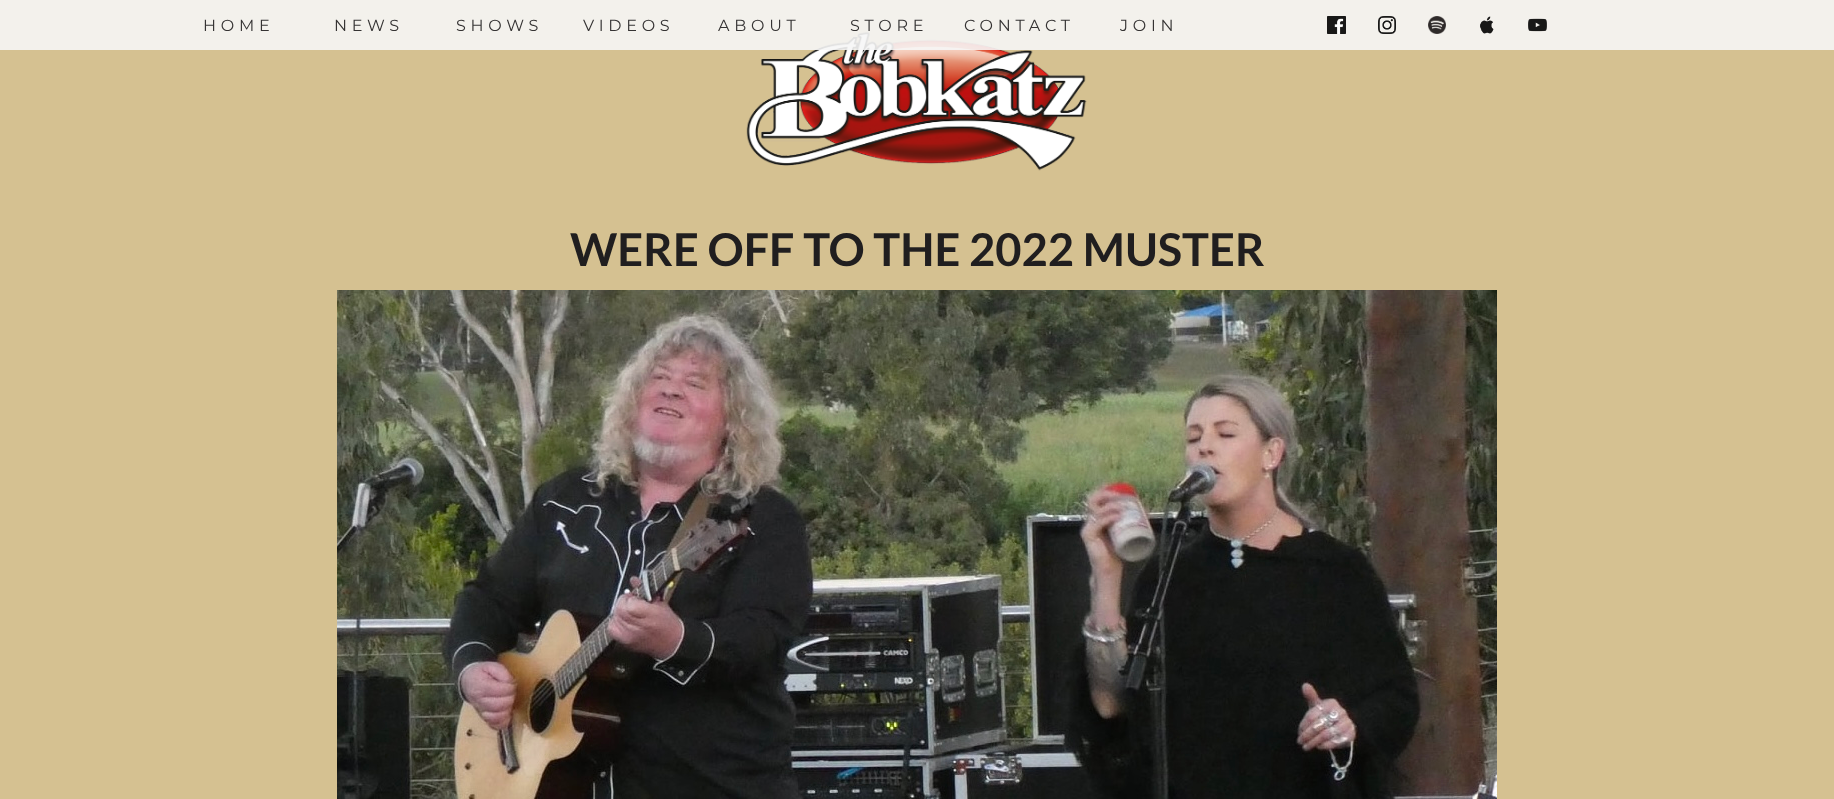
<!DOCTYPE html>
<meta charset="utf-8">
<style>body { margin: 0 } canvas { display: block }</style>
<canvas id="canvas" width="1834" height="799"></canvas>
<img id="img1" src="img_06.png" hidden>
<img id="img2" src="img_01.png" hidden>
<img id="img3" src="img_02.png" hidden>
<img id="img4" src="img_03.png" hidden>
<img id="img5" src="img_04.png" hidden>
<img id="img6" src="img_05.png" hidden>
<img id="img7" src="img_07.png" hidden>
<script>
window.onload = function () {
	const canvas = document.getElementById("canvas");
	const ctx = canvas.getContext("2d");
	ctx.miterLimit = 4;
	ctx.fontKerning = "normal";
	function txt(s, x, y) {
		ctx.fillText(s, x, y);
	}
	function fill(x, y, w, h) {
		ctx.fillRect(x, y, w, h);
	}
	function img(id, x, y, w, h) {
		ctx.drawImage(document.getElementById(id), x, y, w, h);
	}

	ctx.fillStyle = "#D5C191";
	fill(0, 0, 1834, 799);
	img("img1", 746, 31, 341, 140);
	ctx.fillStyle = "rgba(246, 246, 246, 0.9)";
	fill(0, 0, 1834, 50);
	img("img2", 1327, 16, 19, 18);
	img("img3", 1378, 16, 18, 18);
	img("img4", 1428, 16, 18, 18);
	img("img5", 1480, 16, 14, 18);
	img("img6", 1528, 18, 19, 14);
	img("img7", 337, 290, 1160, 509);
	ctx.letterSpacing = "4.75px";
	ctx.font = "16px Montserrat";
	ctx.fillStyle = "#353333";
	txt("HOME", 203, 31);
	txt("NEWS", 334, 31);
	txt("SHOWS", 456, 31);
	txt("VIDEOS", 583, 31);
	txt("ABOUT", 718, 31);
	txt("STORE", 850, 31);
	txt("CONTACT", 964, 31);
	txt("JOIN", 1120, 31);
	ctx.letterSpacing = "0px";
	ctx.font = "bold 45.25px Lato";
	ctx.fillStyle = "#201E1F";
	txt("WERE OFF TO THE 2022 MUSTER", 570, 266);
};
</script>
